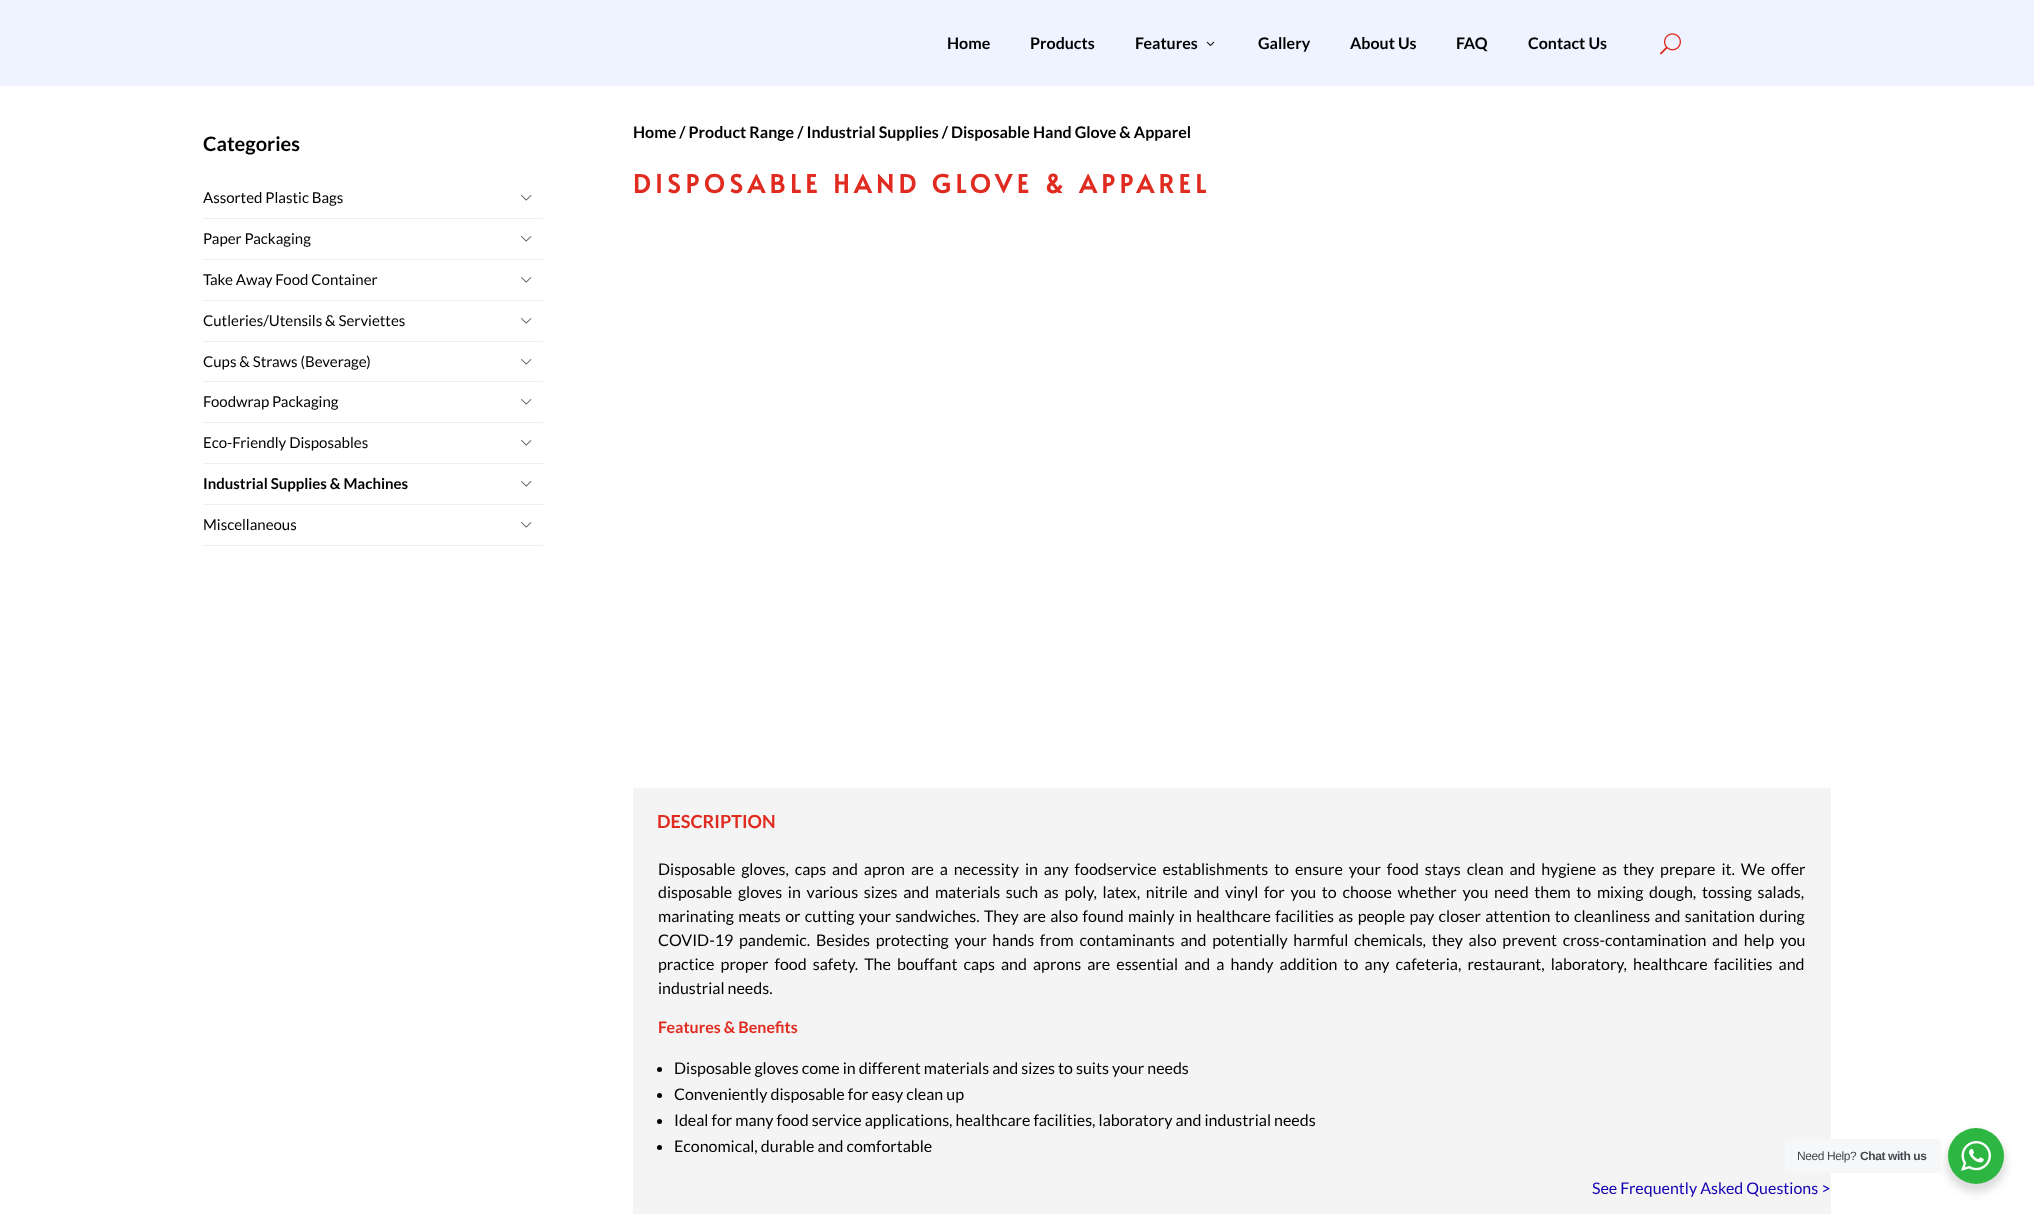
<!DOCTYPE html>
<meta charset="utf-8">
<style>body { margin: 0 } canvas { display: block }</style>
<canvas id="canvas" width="2034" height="1214"></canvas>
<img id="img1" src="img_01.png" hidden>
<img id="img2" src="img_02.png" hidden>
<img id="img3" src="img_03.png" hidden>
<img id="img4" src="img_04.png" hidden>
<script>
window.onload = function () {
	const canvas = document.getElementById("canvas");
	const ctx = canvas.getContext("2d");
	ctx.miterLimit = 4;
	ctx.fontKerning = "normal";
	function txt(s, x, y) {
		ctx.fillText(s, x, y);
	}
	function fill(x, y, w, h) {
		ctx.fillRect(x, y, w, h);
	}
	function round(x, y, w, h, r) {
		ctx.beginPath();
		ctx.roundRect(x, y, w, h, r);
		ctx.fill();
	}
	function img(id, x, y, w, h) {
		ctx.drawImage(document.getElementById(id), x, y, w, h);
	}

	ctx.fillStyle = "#FFFFFF";
	fill(0, 0, 2034, 1214);
	ctx.fillStyle = "#EFF3FF";
	fill(0, 0, 2034, 86);
	img("img1", 1206, 41, 9, 5);
	img("img2", 1660, 33, 21, 22);
	ctx.fillStyle = "#EEEEEE";
	fill(203, 218, 340, 1);
	img("img3", 521, 195, 11, 6);
	fill(203, 259, 340, 1);
	img("img3", 521, 236, 11, 6);
	fill(203, 300, 340, 1);
	img("img3", 521, 277, 11, 6);
	fill(203, 341, 340, 1);
	img("img3", 521, 318, 11, 6);
	fill(203, 381, 340, 1);
	img("img3", 521, 359, 11, 6);
	fill(203, 422, 340, 1);
	img("img3", 521, 399, 11, 6);
	fill(203, 463, 340, 1);
	img("img3", 521, 440, 11, 6);
	fill(203, 504, 340, 1);
	img("img3", 521, 481, 11, 6);
	fill(203, 545, 340, 1);
	img("img3", 521, 522, 11, 6);
	ctx.fillStyle = "#F4F4F4";
	fill(633, 788, 1198, 426);
	ctx.fillStyle = "#000000";
	ctx.beginPath();
	ctx.arc(659.5, 1069.5, 2.5, 0, Math.PI * 2);
	ctx.fill();
	ctx.beginPath();
	ctx.arc(659.5, 1095.5, 2.5, 0, Math.PI * 2);
	ctx.fill();
	ctx.beginPath();
	ctx.arc(659.5, 1121.5, 2.5, 0, Math.PI * 2);
	ctx.fill();
	ctx.beginPath();
	ctx.arc(659.5, 1147.5, 2.5, 0, Math.PI * 2);
	ctx.fill();
	ctx.fillStyle = "rgba(0, 0, 0, 0.14)";
	ctx.filter = "blur(4px)";
	ctx.beginPath();
	ctx.roundRect(1946, 1132, 60, 60, 30);
	ctx.fill();
	ctx.filter = "none";
	ctx.fillStyle = "#F5F7F9";
	round(1785, 1139, 156, 34, 4);
	ctx.fillStyle = "#2DB742";
	ctx.beginPath();
	ctx.arc(1976, 1156, 28, 0, Math.PI * 2);
	ctx.fill();
	img("img4", 1961, 1141, 30, 30);
	ctx.font = "bold 16px Lato";
	ctx.fillStyle = "#000000";
	txt("Home", 947, 49);
	txt("Products", 1030, 49);
	txt("Features", 1135, 49);
	txt("Gallery", 1258, 49);
	txt("About Us", 1350, 49);
	txt("FAQ", 1456, 49);
	txt("Contact Us", 1528, 49);
	ctx.font = "bold 20px Lato";
	txt("Categories", 203, 151);
	ctx.font = "15px Lato";
	txt("Assorted Plastic Bags", 203, 203);
	txt("Paper Packaging", 203, 244);
	txt("Take Away Food Container", 203, 285);
	txt("Cutleries/Utensils & Serviettes", 203, 326);
	txt("Cups & Straws (Beverage)", 203, 367);
	txt("Foodwrap Packaging", 203, 407);
	txt("Eco-Friendly Disposables", 203, 448);
	ctx.font = "bold 15px Lato";
	txt("Industrial Supplies & Machines", 203, 489);
	ctx.font = "15px Lato";
	txt("Miscellaneous", 203, 530);
	ctx.font = "bold 16px Lato";
	txt("Home / Product Range / Industrial Supplies / Disposable Hand Glove & Apparel", 633, 138);
	ctx.letterSpacing = "5px";
	ctx.font = "bold 25px Alata";
	ctx.fillStyle = "#E02B20";
	txt("DISPOSABLE HAND GLOVE & APPAREL", 633, 193);
	ctx.letterSpacing = "0px";
	ctx.font = "bold 18px Lato";
	txt("DESCRIPTION", 657, 828);
	ctx.wordSpacing = "2.8px";
	ctx.font = "16px Lato";
	ctx.fillStyle = "#000000";
	txt("Disposable gloves, caps and apron are a necessity in any foodservice establishments to ensure your food stays clean and hygiene as they prepare it. We offer", 658, 875);
	ctx.wordSpacing = "2.6px";
	txt("disposable gloves in various sizes and materials such as poly, latex, nitrile and vinyl for you to choose whether you need them to mixing dough, tossing salads,", 658, 898);
	ctx.wordSpacing = "1.25px";
	txt("marinating meats or cutting your sandwiches. They are also found mainly in healthcare facilities as people pay closer attention to cleanliness and sanitation during", 658, 922);
	ctx.wordSpacing = "2.6px";
	txt("COVID-19 pandemic. Besides protecting your hands from contaminants and potentially harmful chemicals, they also prevent cross-contamination and help you", 658, 946);
	ctx.wordSpacing = "3px";
	txt("practice proper food safety. The bouffant caps and aprons are essential and a handy addition to any cafeteria, restaurant, laboratory, healthcare facilities and", 658, 970);
	ctx.wordSpacing = "0px";
	txt("industrial needs.", 658, 994);
	ctx.font = "bold 16px Lato";
	ctx.fillStyle = "#E02B20";
	txt("Features & Benefits", 658, 1033);
	ctx.font = "16px Lato";
	ctx.fillStyle = "#000000";
	txt("Disposable gloves come in different materials and sizes to suits your needs", 674, 1074);
	txt("Conveniently disposable for easy clean up", 674, 1100);
	txt("Ideal for many food service applications, healthcare facilities, laboratory and industrial needs", 674, 1126);
	txt("Economical, durable and comfortable", 674, 1152);
	ctx.fillStyle = "#1400B2";
	txt("See Frequently Asked Questions >", 1592, 1194);
	ctx.letterSpacing = "-0.4px";
	ctx.font = "12px Liberation Sans";
	ctx.fillStyle = "#43474E";
	txt("Need Help?", 1797, 1160);
	ctx.font = "bold 12px Liberation Sans";
	txt("Chat with us", 1860, 1160);
};
</script>
